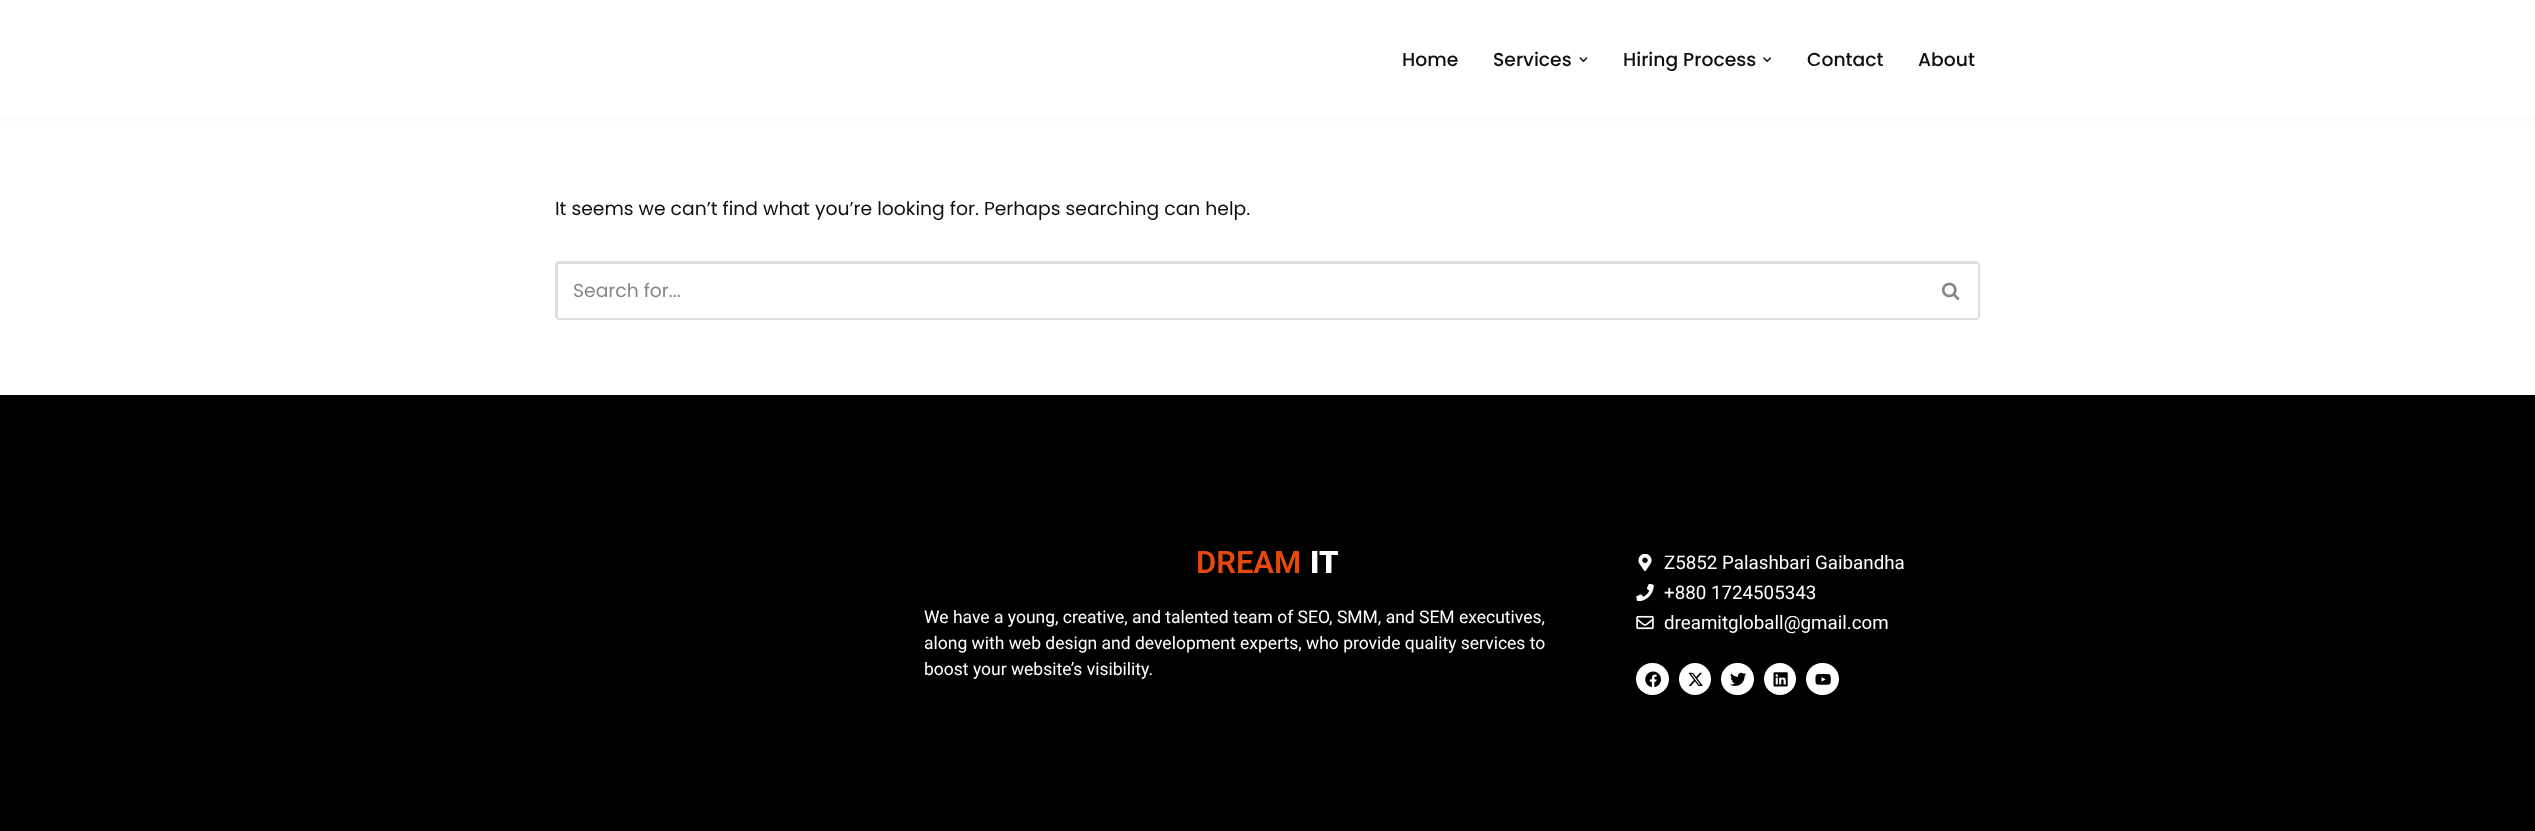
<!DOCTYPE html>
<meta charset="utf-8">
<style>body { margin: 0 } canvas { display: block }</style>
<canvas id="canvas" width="2535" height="831"></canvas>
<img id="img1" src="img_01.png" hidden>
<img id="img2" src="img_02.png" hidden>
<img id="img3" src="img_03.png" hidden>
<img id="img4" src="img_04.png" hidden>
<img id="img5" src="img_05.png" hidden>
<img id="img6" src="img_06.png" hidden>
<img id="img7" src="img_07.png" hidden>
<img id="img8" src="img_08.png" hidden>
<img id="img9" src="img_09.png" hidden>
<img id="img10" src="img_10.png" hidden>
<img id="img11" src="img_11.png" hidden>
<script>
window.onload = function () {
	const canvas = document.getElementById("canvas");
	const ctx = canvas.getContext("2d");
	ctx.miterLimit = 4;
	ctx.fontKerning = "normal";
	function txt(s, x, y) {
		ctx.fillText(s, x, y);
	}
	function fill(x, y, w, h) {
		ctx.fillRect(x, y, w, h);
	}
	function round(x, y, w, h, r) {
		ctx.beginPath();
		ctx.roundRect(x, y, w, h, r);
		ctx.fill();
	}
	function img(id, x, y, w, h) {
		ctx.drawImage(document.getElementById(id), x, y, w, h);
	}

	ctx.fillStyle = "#FFFFFF";
	fill(0, 0, 2535, 831);
	ctx.fillStyle = "rgba(0, 0, 0, 0.1)";
	ctx.filter = "blur(2px)";
	ctx.beginPath();
	ctx.rect(0, -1, 2535, 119);
	ctx.fill();
	ctx.filter = "none";
	ctx.fillStyle = "#FFFFFF";
	fill(0, 0, 2535, 119);
	img("img1", 1579, 57, 9, 6);
	img("img2", 1763, 57, 8, 6);
	ctx.fillStyle = "#DDDDDD";
	ctx.beginPath();
	ctx.moveTo(559, 261);
	ctx.lineTo(1924, 261);
	ctx.lineTo(1924, 320);
	ctx.lineTo(559, 320);
	ctx.bezierCurveTo(557, 320, 555, 318, 555, 316);
	ctx.lineTo(555, 265);
	ctx.bezierCurveTo(555, 263, 557, 261, 559, 261);
	ctx.closePath();
	ctx.moveTo(559, 264);
	ctx.lineTo(1924, 264);
	ctx.lineTo(1924, 318);
	ctx.lineTo(559, 318);
	ctx.bezierCurveTo(558, 318, 558, 317, 558, 316);
	ctx.lineTo(558, 265);
	ctx.bezierCurveTo(558, 264, 558, 264, 559, 264);
	ctx.closePath();
	ctx.fill("evenodd");
	ctx.beginPath();
	ctx.moveTo(1924, 261);
	ctx.lineTo(1976, 261);
	ctx.bezierCurveTo(1978, 261, 1980, 263, 1980, 265);
	ctx.lineTo(1980, 316);
	ctx.bezierCurveTo(1980, 318, 1978, 320, 1976, 320);
	ctx.lineTo(1924, 320);
	ctx.closePath();
	ctx.moveTo(1924, 264);
	ctx.lineTo(1976, 264);
	ctx.bezierCurveTo(1977, 264, 1978, 264, 1978, 265);
	ctx.lineTo(1978, 316);
	ctx.bezierCurveTo(1978, 317, 1977, 318, 1976, 318);
	ctx.lineTo(1924, 318);
	ctx.closePath();
	ctx.fill("evenodd");
	img("img3", 1942, 282, 18, 18);
	ctx.fillStyle = "#000000";
	fill(0, 395, 2535, 436);
	img("img4", 1638, 554, 14, 17);
	img("img5", 1636, 584, 18, 17);
	img("img6", 1636, 615, 18, 15);
	ctx.fillStyle = "#FFFFFF";
	round(1636, 663, 33, 32, 16);
	img("img7", 1645, 671, 16, 17);
	ctx.beginPath();
	ctx.arc(1695, 679, 16, 0, Math.PI * 2);
	ctx.fill();
	img("img8", 1688, 672, 15, 14);
	round(1721, 663, 33, 32, 16);
	img("img9", 1730, 672, 16, 14);
	ctx.beginPath();
	ctx.arc(1780, 679, 16, 0, Math.PI * 2);
	ctx.fill();
	img("img10", 1773, 672, 15, 15);
	round(1806, 663, 33, 32, 16);
	img("img11", 1815, 673, 16, 12);
	ctx.font = "500 18.75px Poppins";
	ctx.fillStyle = "#0F0F0F";
	txt("Home", 1402, 66);
	txt("Services", 1493, 66);
	txt("Hiring Process", 1623, 66);
	txt("Contact", 1807, 66);
	txt("About", 1918, 66);
	ctx.font = "18.75px Poppins";
	txt("It seems we can’t find what you’re looking for. Perhaps searching can help.", 555, 215);
	ctx.fillStyle = "#878787";
	txt("Search for...", 573, 297);
	ctx.font = "600 31px Roboto";
	ctx.fillStyle = "#E5490B";
	txt("DREAM", 1196, 573);
	ctx.font = "900 31px Roboto";
	ctx.fillStyle = "#FFFFFF";
	txt("IT", 1310, 573);
	ctx.font = "17.5px Roboto";
	txt("We have a young, creative, and talented team of SEO, SMM, and SEM executives,", 924, 623);
	txt("along with web design and development experts, who provide quality services to", 924, 649);
	txt("boost your website’s visibility.", 924, 675);
	ctx.font = "18.75px Roboto";
	txt("Z5852 Palashbari Gaibandha", 1664, 569);
	txt("+880 1724505343", 1664, 599);
	txt("dreamitgloball@gmail.com", 1664, 629);
};
</script>
